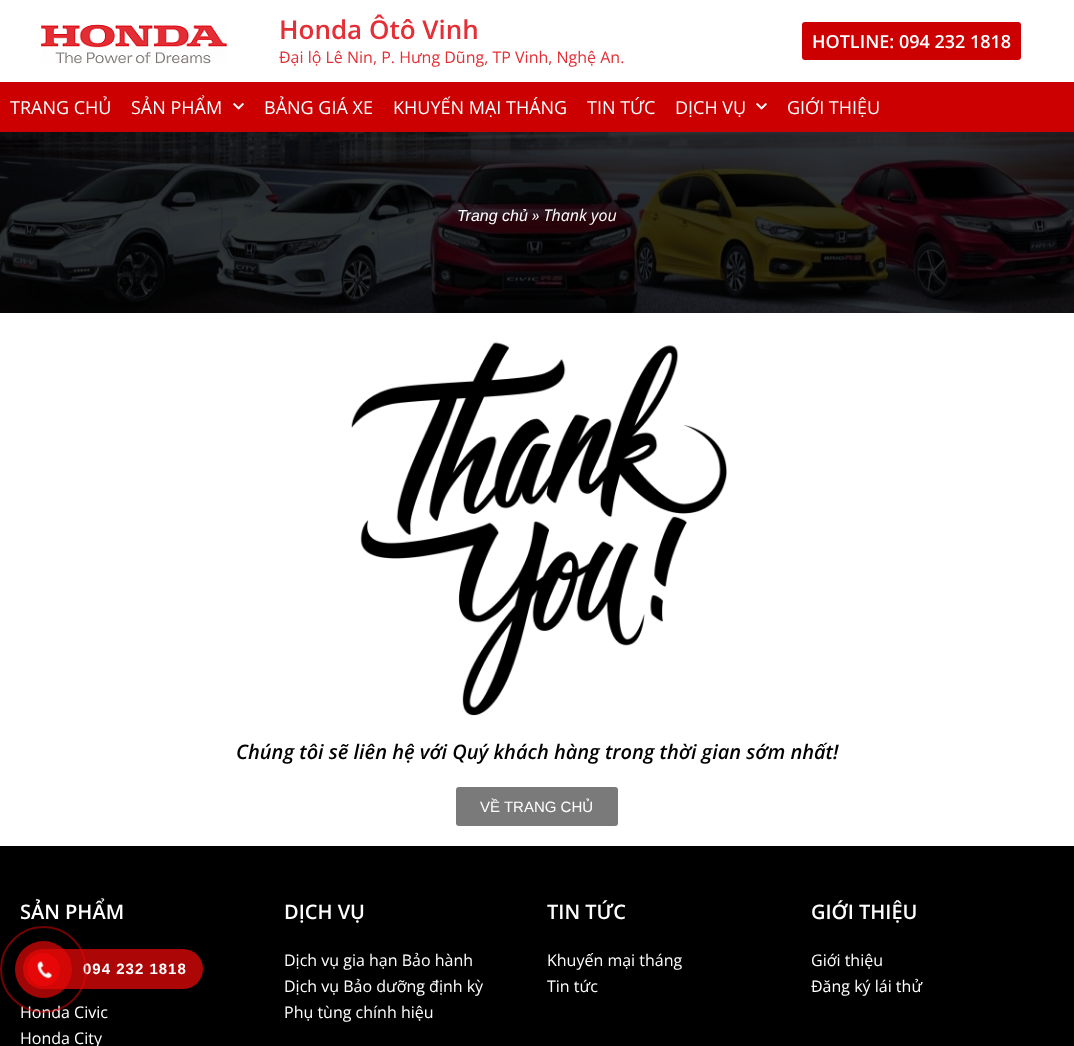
<!DOCTYPE html>
<meta charset="utf-8">
<style>body { margin: 0 } canvas { display: block }</style>
<canvas id="canvas" width="1074" height="1046"></canvas>
<img id="img1" src="img_01.png" hidden>
<img id="img2" src="img_02.png" hidden>
<img id="img3" src="img_03.png" hidden>
<img id="img4" src="img_04.png" hidden>
<img id="img5" src="img_05.png" hidden>
<script>
window.onload = function () {
	const canvas = document.getElementById("canvas");
	const ctx = canvas.getContext("2d");
	ctx.miterLimit = 4;
	ctx.fontKerning = "normal";
	function txt(s, x, y) {
		ctx.fillText(s, x, y);
	}
	function fill(x, y, w, h) {
		ctx.fillRect(x, y, w, h);
	}
	function round(x, y, w, h, r) {
		ctx.beginPath();
		ctx.roundRect(x, y, w, h, r);
		ctx.fill();
	}
	function img(id, x, y, w, h) {
		ctx.drawImage(document.getElementById(id), x, y, w, h);
	}

	ctx.fillStyle = "#FFFFFF";
	fill(0, 0, 1074, 1046);
	img("img1", 41, 24, 186, 40);
	ctx.fillStyle = "#CC0000";
	round(802, 22, 219, 38, 3);
	fill(0, 82, 1074, 50);
	img("img2", 233, 103, 11, 7);
	img("img2", 756, 103, 11, 7);
	img("img3", 0, 132, 1074, 181);
	img("img4", 351, 342, 376, 374);
	ctx.fillStyle = "#7A7A7A";
	round(456, 787, 162, 39, 3);
	ctx.fillStyle = "#000000";
	fill(0, 846, 1074, 200);
	ctx.save();
	ctx.beginPath();
	ctx.moveTo(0, 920);
	ctx.lineTo(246, 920);
	ctx.lineTo(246, 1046);
	ctx.lineTo(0, 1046);
	ctx.closePath();
	ctx.moveTo(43, 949);
	ctx.lineTo(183, 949);
	ctx.bezierCurveTo(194, 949, 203, 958, 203, 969);
	ctx.bezierCurveTo(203, 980, 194, 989, 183, 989);
	ctx.lineTo(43, 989);
	ctx.bezierCurveTo(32, 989, 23, 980, 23, 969);
	ctx.bezierCurveTo(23, 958, 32, 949, 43, 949);
	ctx.closePath();
	ctx.clip("evenodd");
	ctx.fillStyle = "rgba(0, 0, 0, 0.25)";
	ctx.filter = "blur(14px)";
	ctx.beginPath();
	ctx.roundRect(23, 963, 180, 40, 20);
	ctx.fill();
	ctx.filter = "none";
	ctx.restore();
	ctx.fillStyle = "rgba(230, 8, 8, 0.75)";
	round(23, 949, 180, 40, 20);
	ctx.font = "600 26px Open Sans";
	ctx.fillStyle = "#E42F36";
	txt("Honda Ôtô Vinh", 279, 39);
	ctx.font = "16px Open Sans";
	txt("Đại lộ Lê Nin, P. Hưng Dũng, TP Vinh, Nghệ An.", 279, 63);
	ctx.font = "600 18px Open Sans";
	ctx.fillStyle = "#FFFFFF";
	txt("HOTLINE: 094 232 1818", 812, 48);
	ctx.font = "18px Open Sans";
	txt("TRANG CHỦ", 10, 114);
	txt("SẢN PHẨM", 131, 114);
	txt("BẢNG GIÁ XE", 264, 114);
	txt("KHUYẾN MẠI THÁNG", 393, 114);
	txt("TIN TỨC", 587, 114);
	txt("DỊCH VỤ", 675, 114);
	txt("GIỚI THIỆU", 787, 114);
	ctx.font = "italic 16px Liberation Sans";
	txt("Trang chủ", 457, 221);
	ctx.font = "italic 16px Open Sans";
	txt("» Thank you", 532, 221);
	ctx.font = "italic 600 20px Open Sans";
	ctx.fillStyle = "#000000";
	txt("Chúng tôi sẽ liên hệ với Quý khách hàng trong thời gian sớm nhất!", 236, 759);
	ctx.font = "15px Liberation Sans";
	ctx.fillStyle = "#FFFFFF";
	txt("VỀ TRANG CHỦ", 480, 812);
	ctx.font = "600 20px Open Sans";
	txt("SẢN PHẨM", 20, 919);
	ctx.font = "16px Open Sans";
	txt("Honda Civic", 20, 1018);
	txt("Honda City", 20, 1044);
	ctx.font = "600 20px Open Sans";
	txt("DỊCH VỤ", 284, 919);
	ctx.font = "16px Open Sans";
	txt("Dịch vụ gia hạn Bảo hành", 284, 966);
	txt("Dịch vụ Bảo dưỡng định kỳ", 284, 992);
	txt("Phụ tùng chính hiệu", 284, 1018);
	ctx.font = "600 20px Open Sans";
	txt("TIN TỨC", 547, 919);
	ctx.font = "16px Open Sans";
	txt("Khuyến mại tháng", 547, 966);
	txt("Tin tức", 547, 992);
	ctx.font = "600 20px Open Sans";
	txt("GIỚI THIỆU", 811, 919);
	ctx.font = "16px Open Sans";
	txt("Giới thiệu", 811, 966);
	txt("Đăng ký lái thử", 811, 992);
	ctx.letterSpacing = "1px";
	ctx.font = "bold 15px Liberation Sans";
	txt("094 232 1818", 83, 974);
	ctx.beginPath();
	ctx.arc(43.5, 969.5, 42.5, 0, Math.PI * 2);
	ctx.strokeStyle = "rgba(230, 8, 8, 0.5)";
	ctx.lineWidth = 2;
	ctx.stroke();
	ctx.fillStyle = "rgba(230, 8, 8, 0.7)";
	ctx.beginPath();
	ctx.arc(43.5, 969.5, 28.5, 0, Math.PI * 2);
	ctx.fill();
	ctx.fillStyle = "#E60808";
	ctx.beginPath();
	ctx.arc(43.5, 969.5, 16.5, 0, Math.PI * 2);
	ctx.fill();
	img("img5", 37, 961, 16, 18);
};
</script>
